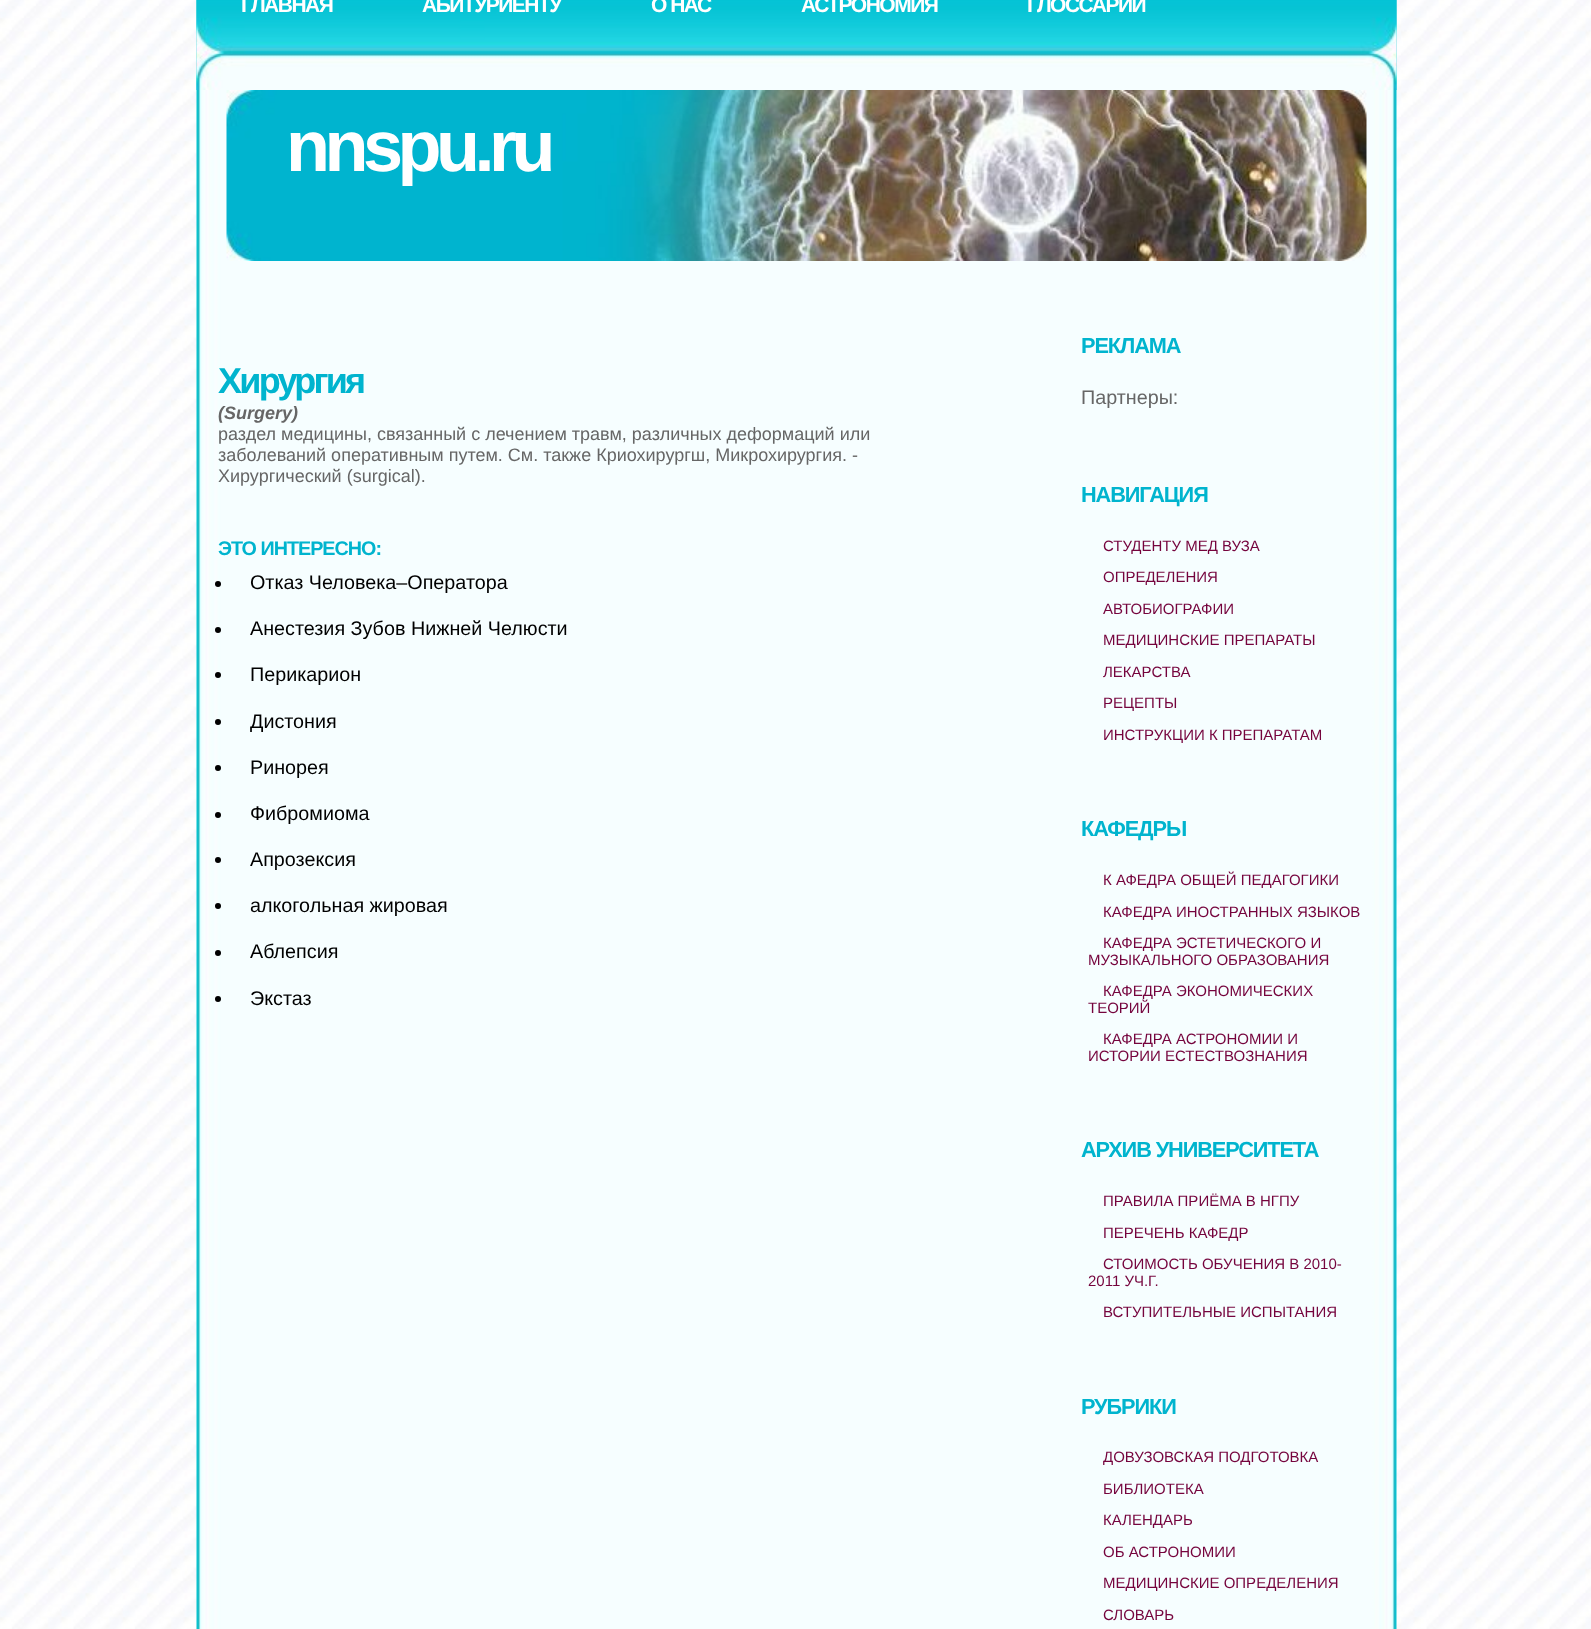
<!DOCTYPE html>
<meta charset="utf-8">
<style>body { margin: 0 } canvas { display: block }</style>
<canvas id="canvas" width="1591" height="1629"></canvas>
<img id="img1" src="img_01.png" hidden>
<img id="img2" src="img_02.png" hidden>
<img id="img3" src="img_03.png" hidden>
<img id="img4" src="img_04.png" hidden>
<script>
window.onload = function () {
	const canvas = document.getElementById("canvas");
	const ctx = canvas.getContext("2d");
	ctx.miterLimit = 4;
	ctx.fontKerning = "normal";
	function txt(s, x, y) {
		ctx.fillText(s, x, y);
	}
	function fill(x, y, w, h) {
		ctx.fillRect(x, y, w, h);
	}
	function img(id, x, y, w, h) {
		ctx.drawImage(document.getElementById(id), x, y, w, h);
	}

	ctx.fillStyle = "#FFFFFF";
	fill(0, 0, 1591, 1629);
	img("img1", 0, 0, 1591, 1629);
	img("img2", 196, 0, 1201, 1629);
	img("img3", 196, 0, 1201, 90);
	img("img4", 226, 90, 1141, 171);
	ctx.fillStyle = "#000000";
	ctx.beginPath();
	ctx.arc(218, 584, 3, 0, Math.PI * 2);
	ctx.fill();
	ctx.beginPath();
	ctx.arc(218, 630, 3, 0, Math.PI * 2);
	ctx.fill();
	ctx.beginPath();
	ctx.arc(218, 675, 3, 0, Math.PI * 2);
	ctx.fill();
	ctx.beginPath();
	ctx.arc(218, 722, 3, 0, Math.PI * 2);
	ctx.fill();
	ctx.beginPath();
	ctx.arc(218, 768, 3, 0, Math.PI * 2);
	ctx.fill();
	ctx.beginPath();
	ctx.arc(218, 815, 3, 0, Math.PI * 2);
	ctx.fill();
	ctx.beginPath();
	ctx.arc(218, 860, 3, 0, Math.PI * 2);
	ctx.fill();
	ctx.beginPath();
	ctx.arc(218, 906, 3, 0, Math.PI * 2);
	ctx.fill();
	ctx.beginPath();
	ctx.arc(218, 953, 3, 0, Math.PI * 2);
	ctx.fill();
	ctx.beginPath();
	ctx.arc(218, 999, 3, 0, Math.PI * 2);
	ctx.fill();
	ctx.letterSpacing = "-1.5px";
	ctx.font = "bold 21px Liberation Sans";
	ctx.fillStyle = "#FFFFFF";
	txt("ГЛАВНАЯ", 241, 12);
	txt("АБИТУРИЕНТУ", 422, 12);
	txt("О НАС", 651, 12);
	txt("АСТРОНОМИЯ", 801, 12);
	txt("ГЛОССАРИЙ", 1027, 12);
	ctx.letterSpacing = "-5.5px";
	ctx.font = "bold 72px Liberation Sans";
	txt("nnspu.ru", 286, 171);
	ctx.letterSpacing = "-2.75px";
	ctx.font = "bold 36px Liberation Sans";
	ctx.fillStyle = "#00B4CE";
	txt("Хирургия", 218, 393);
	ctx.letterSpacing = "0px";
	ctx.font = "italic bold 18px Liberation Sans";
	ctx.fillStyle = "#666666";
	txt("(Surgery)", 218, 419);
	ctx.font = "18px Liberation Sans";
	txt("раздел медицины, связанный с лечением травм, различных деформаций или", 218, 440);
	txt("заболеваний оперативным путем. См. также Криохирургш, Микрохирургия. -", 218, 461);
	txt("Хирургический (surgical).", 218, 482);
	ctx.letterSpacing = "-1px";
	ctx.font = "bold 19.75px Liberation Sans";
	ctx.fillStyle = "#00B4CE";
	txt("ЭТО ИНТЕРЕСНО:", 218, 555);
	ctx.letterSpacing = "0px";
	ctx.font = "19.75px Liberation Sans";
	ctx.fillStyle = "#000000";
	txt("Отказ Человека–Оператора", 250, 589);
	txt("Анестезия Зубов Нижней Челюсти", 250, 635);
	txt("Перикарион", 250, 681);
	txt("Дистония", 250, 728);
	txt("Ринорея", 250, 774);
	txt("Фибромиома", 250, 820);
	txt("Апрозексия", 250, 866);
	txt("алкогольная жировая", 250, 912);
	txt("Аблепсия", 250, 958);
	txt("Экстаз", 250, 1005);
	ctx.letterSpacing = "-1.1px";
	ctx.font = "bold 21.75px Liberation Sans";
	ctx.fillStyle = "#00B4CE";
	txt("РЕКЛАМА", 1081, 353);
	ctx.letterSpacing = "0px";
	ctx.font = "19.75px Liberation Sans";
	ctx.fillStyle = "#666666";
	txt("Партнеры:", 1081, 404);
	ctx.letterSpacing = "-1.1px";
	ctx.font = "bold 21.75px Liberation Sans";
	ctx.fillStyle = "#00B4CE";
	txt("НАВИГАЦИЯ", 1081, 502);
	ctx.letterSpacing = "0px";
	ctx.font = "15px Liberation Sans";
	ctx.fillStyle = "#75043D";
	txt("СТУДЕНТУ МЕД ВУЗА", 1103, 551);
	txt("ОПРЕДЕЛЕНИЯ", 1103, 582);
	txt("АВТОБИОГРАФИИ", 1103, 614);
	txt("МЕДИЦИНСКИЕ ПРЕПАРАТЫ", 1103, 645);
	txt("ЛЕКАРСТВА", 1103, 677);
	txt("РЕЦЕПТЫ", 1103, 708);
	txt("ИНСТРУКЦИИ К ПРЕПАРАТАМ", 1103, 740);
	ctx.letterSpacing = "-1.1px";
	ctx.font = "bold 21.75px Liberation Sans";
	ctx.fillStyle = "#00B4CE";
	txt("КАФЕДРЫ", 1081, 836);
	ctx.letterSpacing = "0px";
	ctx.font = "15px Liberation Sans";
	ctx.fillStyle = "#75043D";
	txt("К АФЕДРА ОБЩЕЙ ПЕДАГОГИКИ", 1103, 885);
	txt("КАФЕДРА ИНОСТРАННЫХ ЯЗЫКОВ", 1103, 917);
	txt("КАФЕДРА ЭСТЕТИЧЕСКОГО И", 1103, 948);
	txt("МУЗЫКАЛЬНОГО ОБРАЗОВАНИЯ", 1088, 965);
	txt("КАФЕДРА ЭКОНОМИЧЕСКИХ", 1103, 996);
	txt("ТЕОРИЙ", 1088, 1013);
	txt("КАФЕДРА АСТРОНОМИИ И", 1103, 1044);
	txt("ИСТОРИИ ЕСТЕСТВОЗНАНИЯ", 1088, 1061);
	ctx.letterSpacing = "-1.1px";
	ctx.font = "bold 21.75px Liberation Sans";
	ctx.fillStyle = "#00B4CE";
	txt("АРХИВ УНИВЕРСИТЕТА", 1081, 1157);
	ctx.letterSpacing = "0px";
	ctx.font = "15px Liberation Sans";
	ctx.fillStyle = "#75043D";
	txt("ПРАВИЛА ПРИЁМА В НГПУ", 1103, 1206);
	txt("ПЕРЕЧЕНЬ КАФЕДР", 1103, 1238);
	txt("СТОИМОСТЬ ОБУЧЕНИЯ В 2010-", 1103, 1269);
	txt("2011 УЧ.Г.", 1088, 1286);
	txt("ВСТУПИТЕЛЬНЫЕ ИСПЫТАНИЯ", 1103, 1317);
	ctx.letterSpacing = "-1.1px";
	ctx.font = "bold 21.75px Liberation Sans";
	ctx.fillStyle = "#00B4CE";
	txt("РУБРИКИ", 1081, 1414);
	ctx.letterSpacing = "0px";
	ctx.font = "15px Liberation Sans";
	ctx.fillStyle = "#75043D";
	txt("ДОВУЗОВСКАЯ ПОДГОТОВКА", 1103, 1462);
	txt("БИБЛИОТЕКА", 1103, 1494);
	txt("КАЛЕНДАРЬ", 1103, 1525);
	txt("ОБ АСТРОНОМИИ", 1103, 1557);
	txt("МЕДИЦИНСКИЕ ОПРЕДЕЛЕНИЯ", 1103, 1588);
	txt("СЛОВАРЬ", 1103, 1620);
};
</script>
